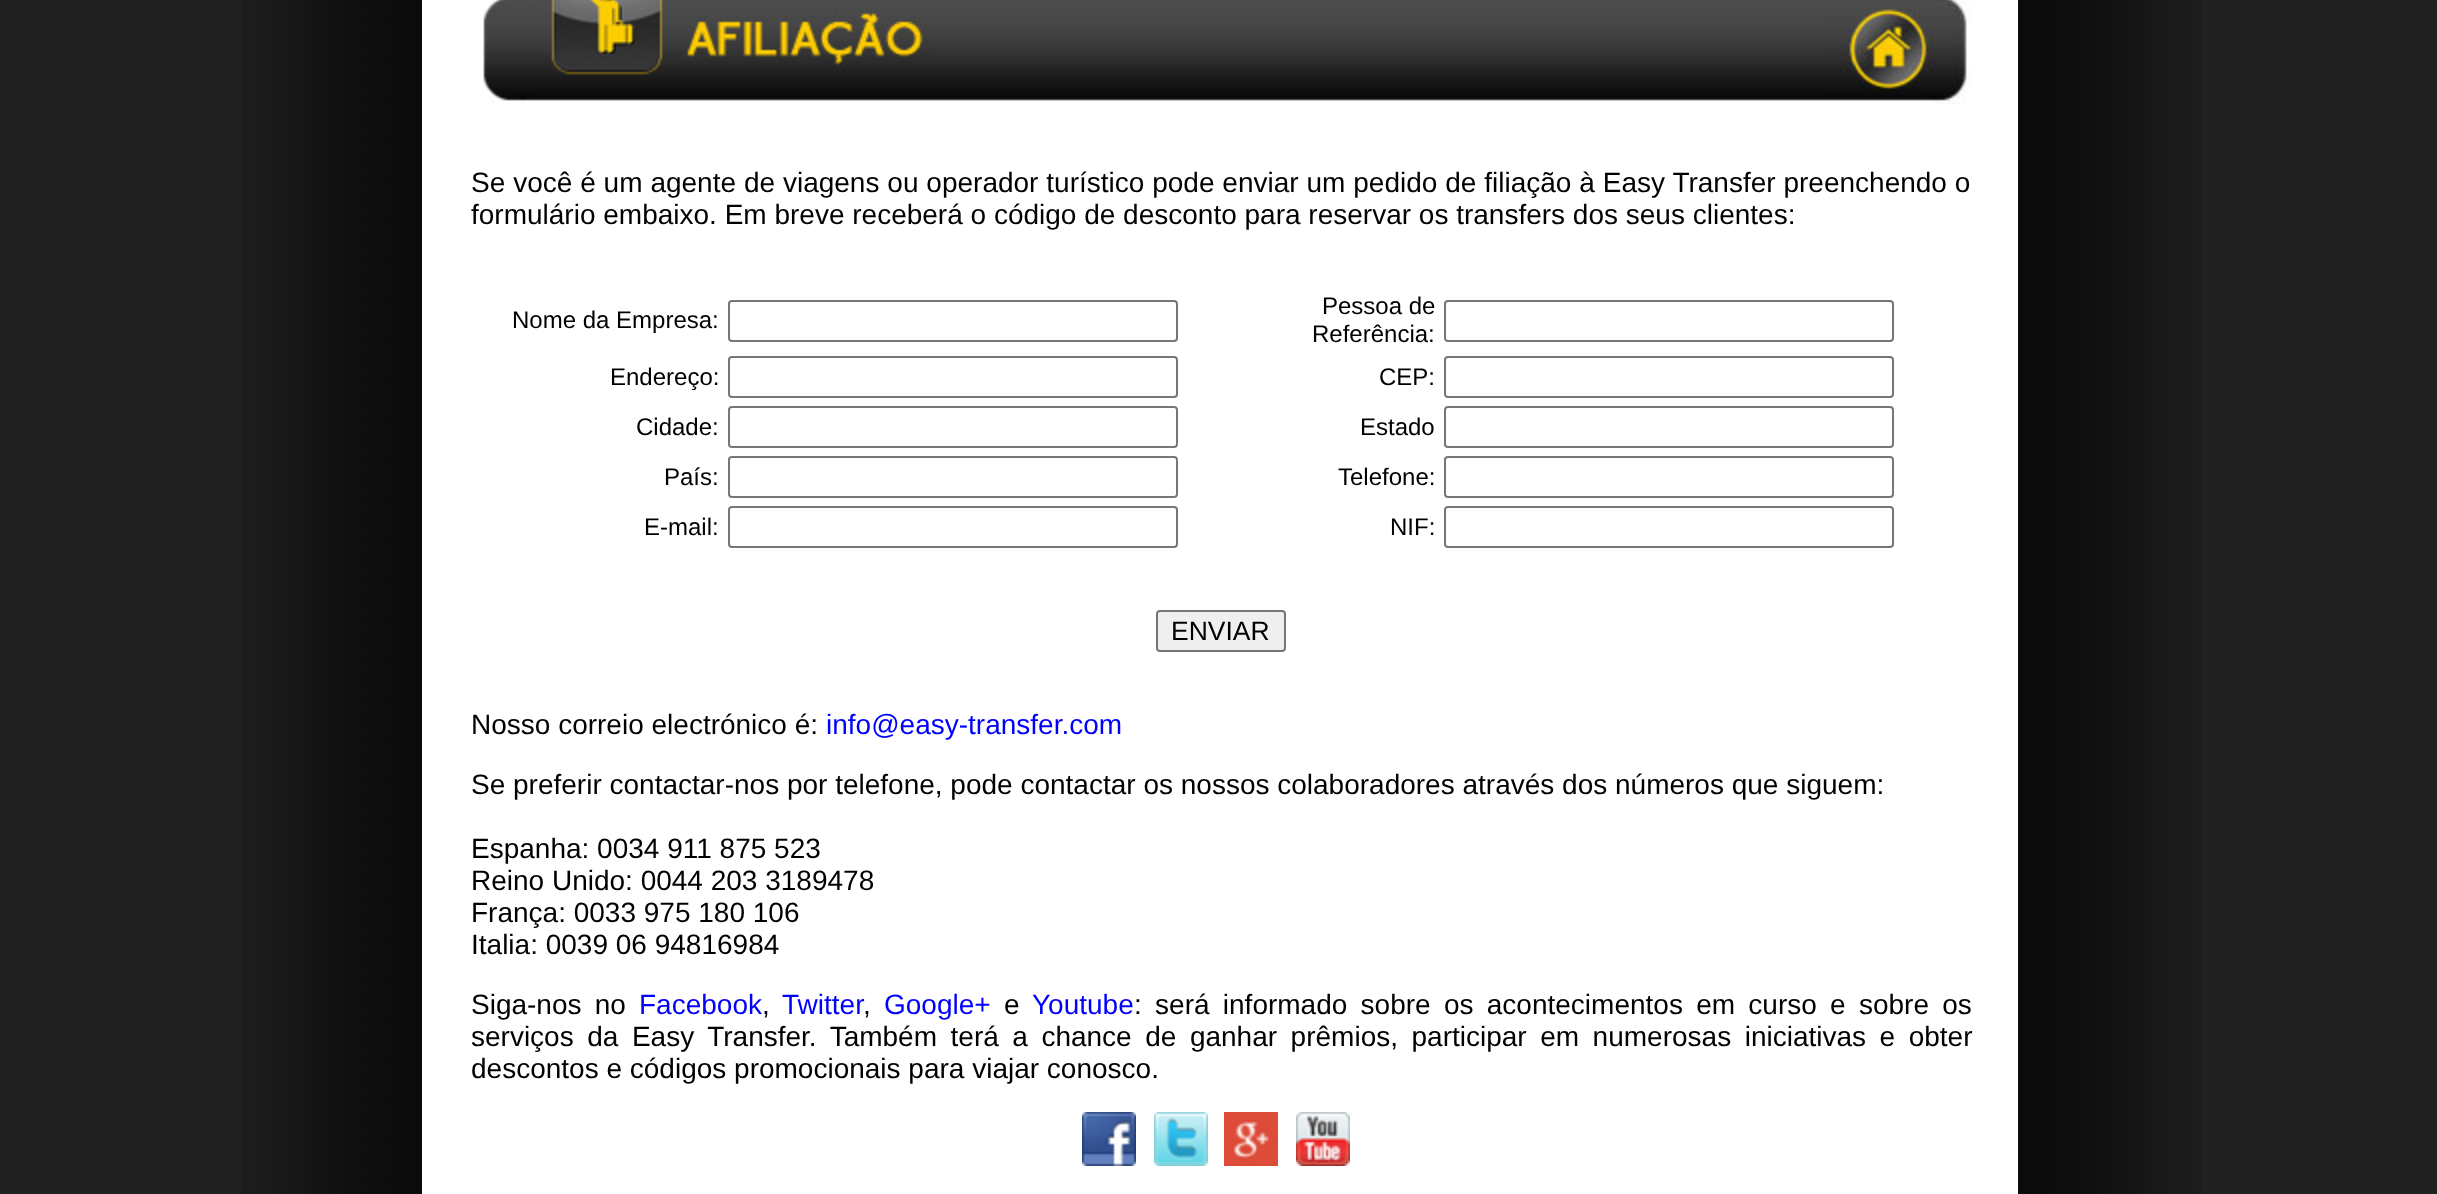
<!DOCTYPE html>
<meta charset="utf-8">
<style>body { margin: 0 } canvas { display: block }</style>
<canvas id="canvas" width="2437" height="1194"></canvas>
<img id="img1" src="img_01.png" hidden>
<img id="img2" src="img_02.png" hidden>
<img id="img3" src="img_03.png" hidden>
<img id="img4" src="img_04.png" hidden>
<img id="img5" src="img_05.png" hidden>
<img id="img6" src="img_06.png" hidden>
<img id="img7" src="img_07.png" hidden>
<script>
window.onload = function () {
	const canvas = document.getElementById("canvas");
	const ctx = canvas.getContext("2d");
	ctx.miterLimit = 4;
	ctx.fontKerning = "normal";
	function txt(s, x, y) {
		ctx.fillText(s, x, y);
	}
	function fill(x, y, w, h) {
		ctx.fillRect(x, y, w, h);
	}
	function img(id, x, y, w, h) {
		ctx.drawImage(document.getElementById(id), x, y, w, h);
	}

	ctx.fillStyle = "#212121";
	fill(0, 0, 2437, 1194);
	img("img1", 241, 0, 1960, 1194);
	ctx.fillStyle = "#FFFFFF";
	fill(422, 0, 1596, 1194);
	img("img2", 483, 0, 1341, 104);
	img("img3", 1824, 0, 148, 104);
	ctx.beginPath();
	ctx.roundRect(729, 301, 448, 40, 3);
	ctx.strokeStyle = "#767676";
	ctx.lineWidth = 2;
	ctx.stroke();
	ctx.beginPath();
	ctx.roundRect(1445, 301, 448, 40, 3);
	ctx.stroke();
	ctx.beginPath();
	ctx.roundRect(729, 357, 448, 40, 3);
	ctx.stroke();
	ctx.beginPath();
	ctx.roundRect(1445, 357, 448, 40, 3);
	ctx.stroke();
	ctx.beginPath();
	ctx.roundRect(729, 407, 448, 40, 3);
	ctx.stroke();
	ctx.beginPath();
	ctx.roundRect(1445, 407, 448, 40, 3);
	ctx.stroke();
	ctx.beginPath();
	ctx.roundRect(729, 457, 448, 40, 3);
	ctx.stroke();
	ctx.beginPath();
	ctx.roundRect(1445, 457, 448, 40, 3);
	ctx.stroke();
	ctx.beginPath();
	ctx.roundRect(729, 507, 448, 40, 3);
	ctx.stroke();
	ctx.beginPath();
	ctx.roundRect(1445, 507, 448, 40, 3);
	ctx.stroke();
	ctx.fillStyle = "#EFEFEF";
	ctx.beginPath();
	ctx.roundRect(1157, 611, 128, 40, 3);
	ctx.fill();
	ctx.stroke();
	img("img4", 1082, 1112, 54, 54);
	img("img5", 1154, 1112, 54, 54);
	img("img6", 1224, 1112, 54, 54);
	img("img7", 1296, 1112, 54, 54);
	ctx.wordSpacing = "0.1px";
	ctx.font = "28px Liberation Sans";
	ctx.fillStyle = "#000000";
	txt("Se você é um agente de viagens ou operador turístico pode enviar um pedido de filiação à Easy Transfer preenchendo o", 471, 192);
	ctx.wordSpacing = "0px";
	txt("formulário embaixo. Em breve receberá o código de desconto para reservar os transfers dos seus clientes:", 471, 224);
	ctx.font = "24px Liberation Sans";
	txt("Nome da Empresa:", 512, 328);
	txt("Pessoa de", 1322, 314);
	txt("Referência:", 1312, 342);
	txt("Endereço:", 610, 385);
	txt("CEP:", 1379, 385);
	txt("Cidade:", 636, 435);
	txt("Estado", 1360, 435);
	txt("País:", 664, 485);
	txt("Telefone:", 1338, 485);
	txt("E-mail:", 644, 535);
	txt("NIF:", 1390, 535);
	ctx.font = "26.5px Liberation Sans";
	txt("ENVIAR", 1171, 640);
	ctx.font = "28px Liberation Sans";
	txt("Nosso correio electrónico é:", 471, 734);
	ctx.fillStyle = "#0000FF";
	txt("info@easy-transfer.com", 826, 734);
	ctx.fillStyle = "#000000";
	txt("Se preferir contactar-nos por telefone, pode contactar os nossos colaboradores através dos números que siguem:", 471, 794);
	txt("Espanha: 0034 911 875 523", 471, 858);
	txt("Reino Unido: 0044 203 3189478", 471, 890);
	txt("França: 0033 975 180 106", 471, 922);
	txt("Italia: 0039 06 94816984", 471, 954);
	ctx.wordSpacing = "5.5px";
	txt("Siga-nos no", 471, 1014);
	ctx.wordSpacing = "0px";
	ctx.fillStyle = "#0000FF";
	txt("Facebook", 639, 1014);
	ctx.fillStyle = "#000000";
	txt(",", 762, 1014);
	ctx.fillStyle = "#0000FF";
	txt("Twitter", 782, 1014);
	ctx.fillStyle = "#000000";
	txt(",", 863, 1014);
	ctx.fillStyle = "#0000FF";
	txt("Google+", 884, 1014);
	ctx.fillStyle = "#000000";
	txt("e", 1004, 1014);
	ctx.fillStyle = "#0000FF";
	txt("Youtube", 1032, 1014);
	ctx.wordSpacing = "5.5px";
	ctx.fillStyle = "#000000";
	txt(": será informado sobre os acontecimentos em curso e sobre os", 1134, 1014);
	ctx.wordSpacing = "5.75px";
	txt("serviços da Easy Transfer. Também terá a chance de ganhar prêmios, participar em numerosas iniciativas e obter", 471, 1046);
	ctx.wordSpacing = "0px";
	txt("descontos e códigos promocionais para viajar conosco.", 471, 1078);
};
</script>
